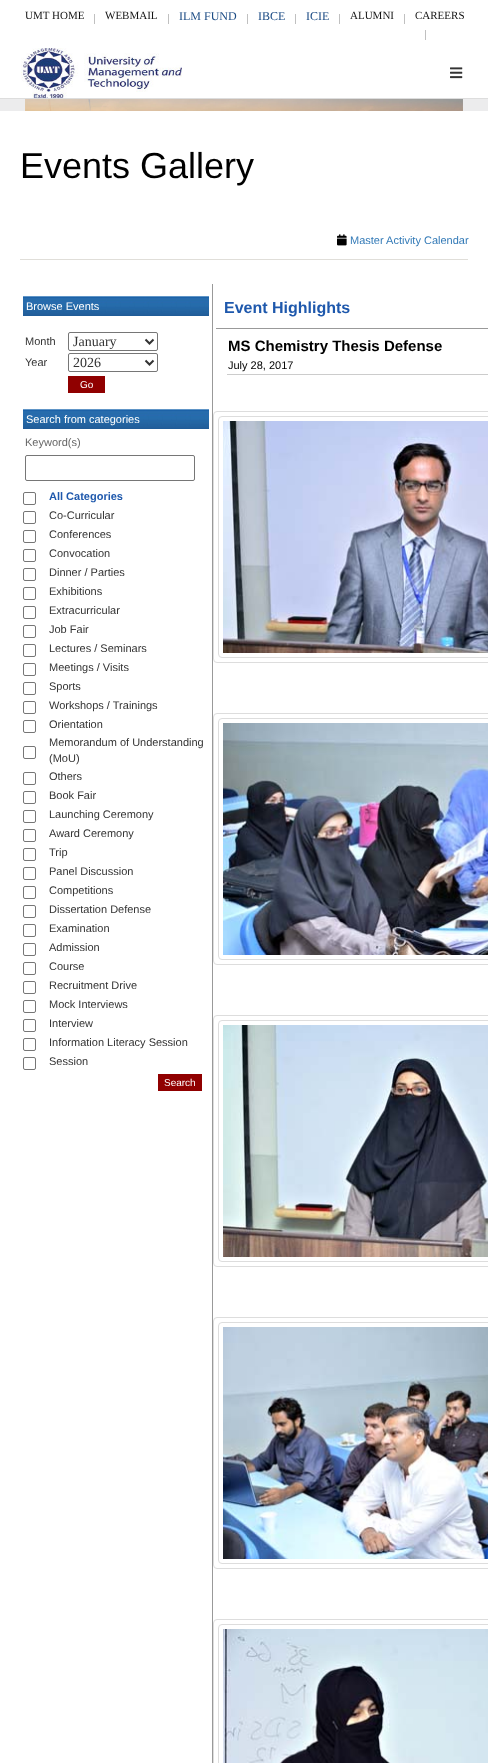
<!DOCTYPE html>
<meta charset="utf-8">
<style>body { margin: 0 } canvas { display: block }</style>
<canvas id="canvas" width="488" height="1763"></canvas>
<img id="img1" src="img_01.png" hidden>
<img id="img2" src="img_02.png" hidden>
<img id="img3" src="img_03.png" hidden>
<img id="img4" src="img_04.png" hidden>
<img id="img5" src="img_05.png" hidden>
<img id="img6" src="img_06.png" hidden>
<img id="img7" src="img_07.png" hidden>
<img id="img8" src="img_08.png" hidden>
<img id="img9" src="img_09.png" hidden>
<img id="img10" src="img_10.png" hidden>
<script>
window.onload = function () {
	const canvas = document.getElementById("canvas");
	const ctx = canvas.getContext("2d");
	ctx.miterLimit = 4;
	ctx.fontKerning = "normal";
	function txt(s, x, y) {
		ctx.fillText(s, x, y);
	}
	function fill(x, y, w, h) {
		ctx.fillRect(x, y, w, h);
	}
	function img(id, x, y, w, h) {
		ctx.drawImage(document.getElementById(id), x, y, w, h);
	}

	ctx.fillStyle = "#FFFFFF";
	fill(0, 0, 488, 1763);
	ctx.fillStyle = "#DDDDDD";
	fill(0, 98, 488, 1);
	ctx.fillStyle = "#C0C0C0";
	fill(94, 14, 1, 10);
	fill(168, 14, 1, 10);
	fill(247, 14, 1, 10);
	fill(295, 14, 1, 10);
	fill(339, 14, 1, 10);
	fill(404, 14, 1, 10);
	fill(425, 30, 1, 10);
	img("img1", 21, 48, 161, 50);
	img("img2", 450, 67, 13, 12);
	ctx.fillStyle = "#ECECED";
	fill(0, 99, 488, 12);
	img("img3", 25, 99, 438, 12);
	ctx.fillStyle = "#E0DED9";
	fill(20, 259, 448, 1);
	img("img4", 337, 234, 10, 12);
	img("img5", 23, 296, 186, 20);
	ctx.beginPath();
	ctx.roundRect(68.5, 332.5, 89, 18, 1.5);
	ctx.strokeStyle = "#767676";
	ctx.stroke();
	ctx.beginPath();
	ctx.moveTo(145.5, 339.5);
	ctx.lineTo(149.5, 343.5);
	ctx.lineTo(153.5, 339.5);
	ctx.strokeStyle = "#333333";
	ctx.lineWidth = 2;
	ctx.stroke();
	ctx.beginPath();
	ctx.roundRect(68.5, 353.5, 89, 18, 1.5);
	ctx.strokeStyle = "#767676";
	ctx.lineWidth = 1;
	ctx.stroke();
	ctx.beginPath();
	ctx.moveTo(145.5, 360.5);
	ctx.lineTo(149.5, 364.5);
	ctx.lineTo(153.5, 360.5);
	ctx.strokeStyle = "#333333";
	ctx.lineWidth = 2;
	ctx.stroke();
	ctx.fillStyle = "#900000";
	fill(68, 376, 37, 17);
	img("img5", 23, 409, 186, 20);
	ctx.beginPath();
	ctx.roundRect(25.5, 455.5, 169, 25, 1.5);
	ctx.strokeStyle = "#767676";
	ctx.lineWidth = 1;
	ctx.stroke();
	ctx.beginPath();
	ctx.roundRect(23.5, 492.5, 12, 12, 1.5);
	ctx.stroke();
	ctx.beginPath();
	ctx.roundRect(23.5, 511.5, 12, 12, 1.5);
	ctx.stroke();
	ctx.beginPath();
	ctx.roundRect(23.5, 530.5, 12, 12, 1.5);
	ctx.stroke();
	ctx.beginPath();
	ctx.roundRect(23.5, 549.5, 12, 12, 1.5);
	ctx.stroke();
	ctx.beginPath();
	ctx.roundRect(23.5, 568.5, 12, 12, 1.5);
	ctx.stroke();
	ctx.beginPath();
	ctx.roundRect(23.5, 587.5, 12, 12, 1.5);
	ctx.stroke();
	ctx.beginPath();
	ctx.roundRect(23.5, 606.5, 12, 12, 1.5);
	ctx.stroke();
	ctx.beginPath();
	ctx.roundRect(23.5, 625.5, 12, 12, 1.5);
	ctx.stroke();
	ctx.beginPath();
	ctx.roundRect(23.5, 644.5, 12, 12, 1.5);
	ctx.stroke();
	ctx.beginPath();
	ctx.roundRect(23.5, 663.5, 12, 12, 1.5);
	ctx.stroke();
	ctx.beginPath();
	ctx.roundRect(23.5, 682.5, 12, 12, 1.5);
	ctx.stroke();
	ctx.beginPath();
	ctx.roundRect(23.5, 701.5, 12, 12, 1.5);
	ctx.stroke();
	ctx.beginPath();
	ctx.roundRect(23.5, 720.5, 12, 12, 1.5);
	ctx.stroke();
	ctx.beginPath();
	ctx.roundRect(23.5, 746.5, 12, 12, 1.5);
	ctx.stroke();
	ctx.beginPath();
	ctx.roundRect(23.5, 772.5, 12, 12, 1.5);
	ctx.stroke();
	ctx.beginPath();
	ctx.roundRect(23.5, 791.5, 12, 12, 1.5);
	ctx.stroke();
	ctx.beginPath();
	ctx.roundRect(23.5, 810.5, 12, 12, 1.5);
	ctx.stroke();
	ctx.beginPath();
	ctx.roundRect(23.5, 829.5, 12, 12, 1.5);
	ctx.stroke();
	ctx.beginPath();
	ctx.roundRect(23.5, 848.5, 12, 12, 1.5);
	ctx.stroke();
	ctx.beginPath();
	ctx.roundRect(23.5, 867.5, 12, 12, 1.5);
	ctx.stroke();
	ctx.beginPath();
	ctx.roundRect(23.5, 886.5, 12, 12, 1.5);
	ctx.stroke();
	ctx.beginPath();
	ctx.roundRect(23.5, 905.5, 12, 12, 1.5);
	ctx.stroke();
	ctx.beginPath();
	ctx.roundRect(23.5, 924.5, 12, 12, 1.5);
	ctx.stroke();
	ctx.beginPath();
	ctx.roundRect(23.5, 943.5, 12, 12, 1.5);
	ctx.stroke();
	ctx.beginPath();
	ctx.roundRect(23.5, 962.5, 12, 12, 1.5);
	ctx.stroke();
	ctx.beginPath();
	ctx.roundRect(23.5, 981.5, 12, 12, 1.5);
	ctx.stroke();
	ctx.beginPath();
	ctx.roundRect(23.5, 1000.5, 12, 12, 1.5);
	ctx.stroke();
	ctx.beginPath();
	ctx.roundRect(23.5, 1019.5, 12, 12, 1.5);
	ctx.stroke();
	ctx.beginPath();
	ctx.roundRect(23.5, 1038.5, 12, 12, 1.5);
	ctx.stroke();
	ctx.beginPath();
	ctx.roundRect(23.5, 1057.5, 12, 12, 1.5);
	ctx.stroke();
	fill(158, 1074, 44, 17);
	ctx.fillStyle = "#999999";
	fill(212, 284, 1, 1479);
	fill(216, 328, 272, 1);
	ctx.fillStyle = "#CCCCCC";
	fill(227, 374, 261, 1);
	ctx.beginPath();
	ctx.roundRect(213.5, 411.5, 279, 251, 3.5);
	ctx.strokeStyle = "#DDDDDD";
	ctx.stroke();
	ctx.beginPath();
	ctx.roundRect(218.5, 416.5, 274, 241, 3.5);
	ctx.stroke();
	img("img6", 223, 421, 265, 232);
	ctx.beginPath();
	ctx.roundRect(213.5, 713.5, 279, 251, 3.5);
	ctx.stroke();
	ctx.beginPath();
	ctx.roundRect(218.5, 718.5, 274, 241, 3.5);
	ctx.stroke();
	img("img7", 223, 723, 265, 232);
	ctx.beginPath();
	ctx.roundRect(213.5, 1015.5, 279, 251, 3.5);
	ctx.stroke();
	ctx.beginPath();
	ctx.roundRect(218.5, 1020.5, 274, 241, 3.5);
	ctx.stroke();
	img("img8", 223, 1025, 265, 232);
	ctx.beginPath();
	ctx.roundRect(213.5, 1317.5, 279, 251, 3.5);
	ctx.stroke();
	ctx.beginPath();
	ctx.roundRect(218.5, 1322.5, 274, 241, 3.5);
	ctx.stroke();
	img("img9", 223, 1327, 265, 232);
	ctx.beginPath();
	ctx.roundRect(213.5, 1619.5, 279, 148, 3.5);
	ctx.stroke();
	ctx.beginPath();
	ctx.roundRect(218.5, 1624.5, 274, 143, 3.5);
	ctx.stroke();
	img("img10", 223, 1629, 265, 134);
	ctx.font = "11px Liberation Serif";
	ctx.fillStyle = "#141414";
	txt("UMT HOME", 25, 19);
	txt("WEBMAIL", 105, 19);
	ctx.font = "12px Liberation Serif";
	ctx.fillStyle = "#1B4B84";
	txt("ILM FUND", 179, 20);
	txt("IBCE", 258, 20);
	txt("ICIE", 306, 20);
	ctx.font = "11px Liberation Serif";
	ctx.fillStyle = "#141414";
	txt("ALUMNI", 350, 19);
	txt("CAREERS", 415, 19);
	ctx.font = "36px Liberation Sans";
	ctx.fillStyle = "#000000";
	txt("Events Gallery", 20, 178);
	ctx.font = "11px Liberation Sans";
	ctx.fillStyle = "#337AB7";
	txt("Master Activity Calendar", 350, 244);
	ctx.fillStyle = "#FFFFFF";
	txt("Browse Events", 26, 310);
	ctx.fillStyle = "#333333";
	txt("Month", 25, 345);
	ctx.font = "14px Liberation Serif";
	txt("January", 73, 346);
	ctx.font = "11px Liberation Sans";
	txt("Year", 25, 366);
	ctx.font = "14px Liberation Serif";
	txt("2026", 73, 367);
	ctx.font = "10px Liberation Sans";
	ctx.fillStyle = "#FFFFFF";
	txt("Go", 80, 388);
	ctx.font = "11px Liberation Sans";
	txt("Search from categories", 26, 423);
	ctx.fillStyle = "#666666";
	txt("Keyword(s)", 25, 446);
	ctx.font = "bold 11px Liberation Sans";
	ctx.fillStyle = "#1E58AC";
	txt("All Categories", 49, 500);
	ctx.font = "11px Liberation Sans";
	ctx.fillStyle = "#333333";
	txt("Co-Curricular", 49, 519);
	txt("Conferences", 49, 538);
	txt("Convocation", 49, 557);
	txt("Dinner / Parties", 49, 576);
	txt("Exhibitions", 49, 595);
	txt("Extracurricular", 49, 614);
	txt("Job Fair", 49, 633);
	txt("Lectures / Seminars", 49, 652);
	txt("Meetings / Visits", 49, 671);
	txt("Sports", 49, 690);
	txt("Workshops / Trainings", 49, 709);
	txt("Orientation", 49, 728);
	txt("Memorandum of Understanding", 49, 746);
	txt("(MoU)", 49, 762);
	txt("Others", 49, 780);
	txt("Book Fair", 49, 799);
	txt("Launching Ceremony", 49, 818);
	txt("Award Ceremony", 49, 837);
	txt("Trip", 49, 856);
	txt("Panel Discussion", 49, 875);
	txt("Competitions", 49, 894);
	txt("Dissertation Defense", 49, 913);
	txt("Examination", 49, 932);
	txt("Admission", 49, 951);
	txt("Course", 49, 970);
	txt("Recruitment Drive", 49, 989);
	txt("Mock Interviews", 49, 1008);
	txt("Interview", 49, 1027);
	txt("Information Literacy Session", 49, 1046);
	txt("Session", 49, 1065);
	ctx.font = "10px Liberation Sans";
	ctx.fillStyle = "#FFFFFF";
	txt("Search", 164, 1086);
	ctx.font = "bold 16px Liberation Sans";
	ctx.fillStyle = "#1E58AC";
	txt("Event Highlights", 224, 313);
	ctx.font = "bold 15px Liberation Sans";
	ctx.fillStyle = "#000000";
	txt("MS Chemistry Thesis Defense", 228, 351);
	ctx.font = "11px Liberation Sans";
	txt("July 28, 2017", 228, 369);
};
</script>
